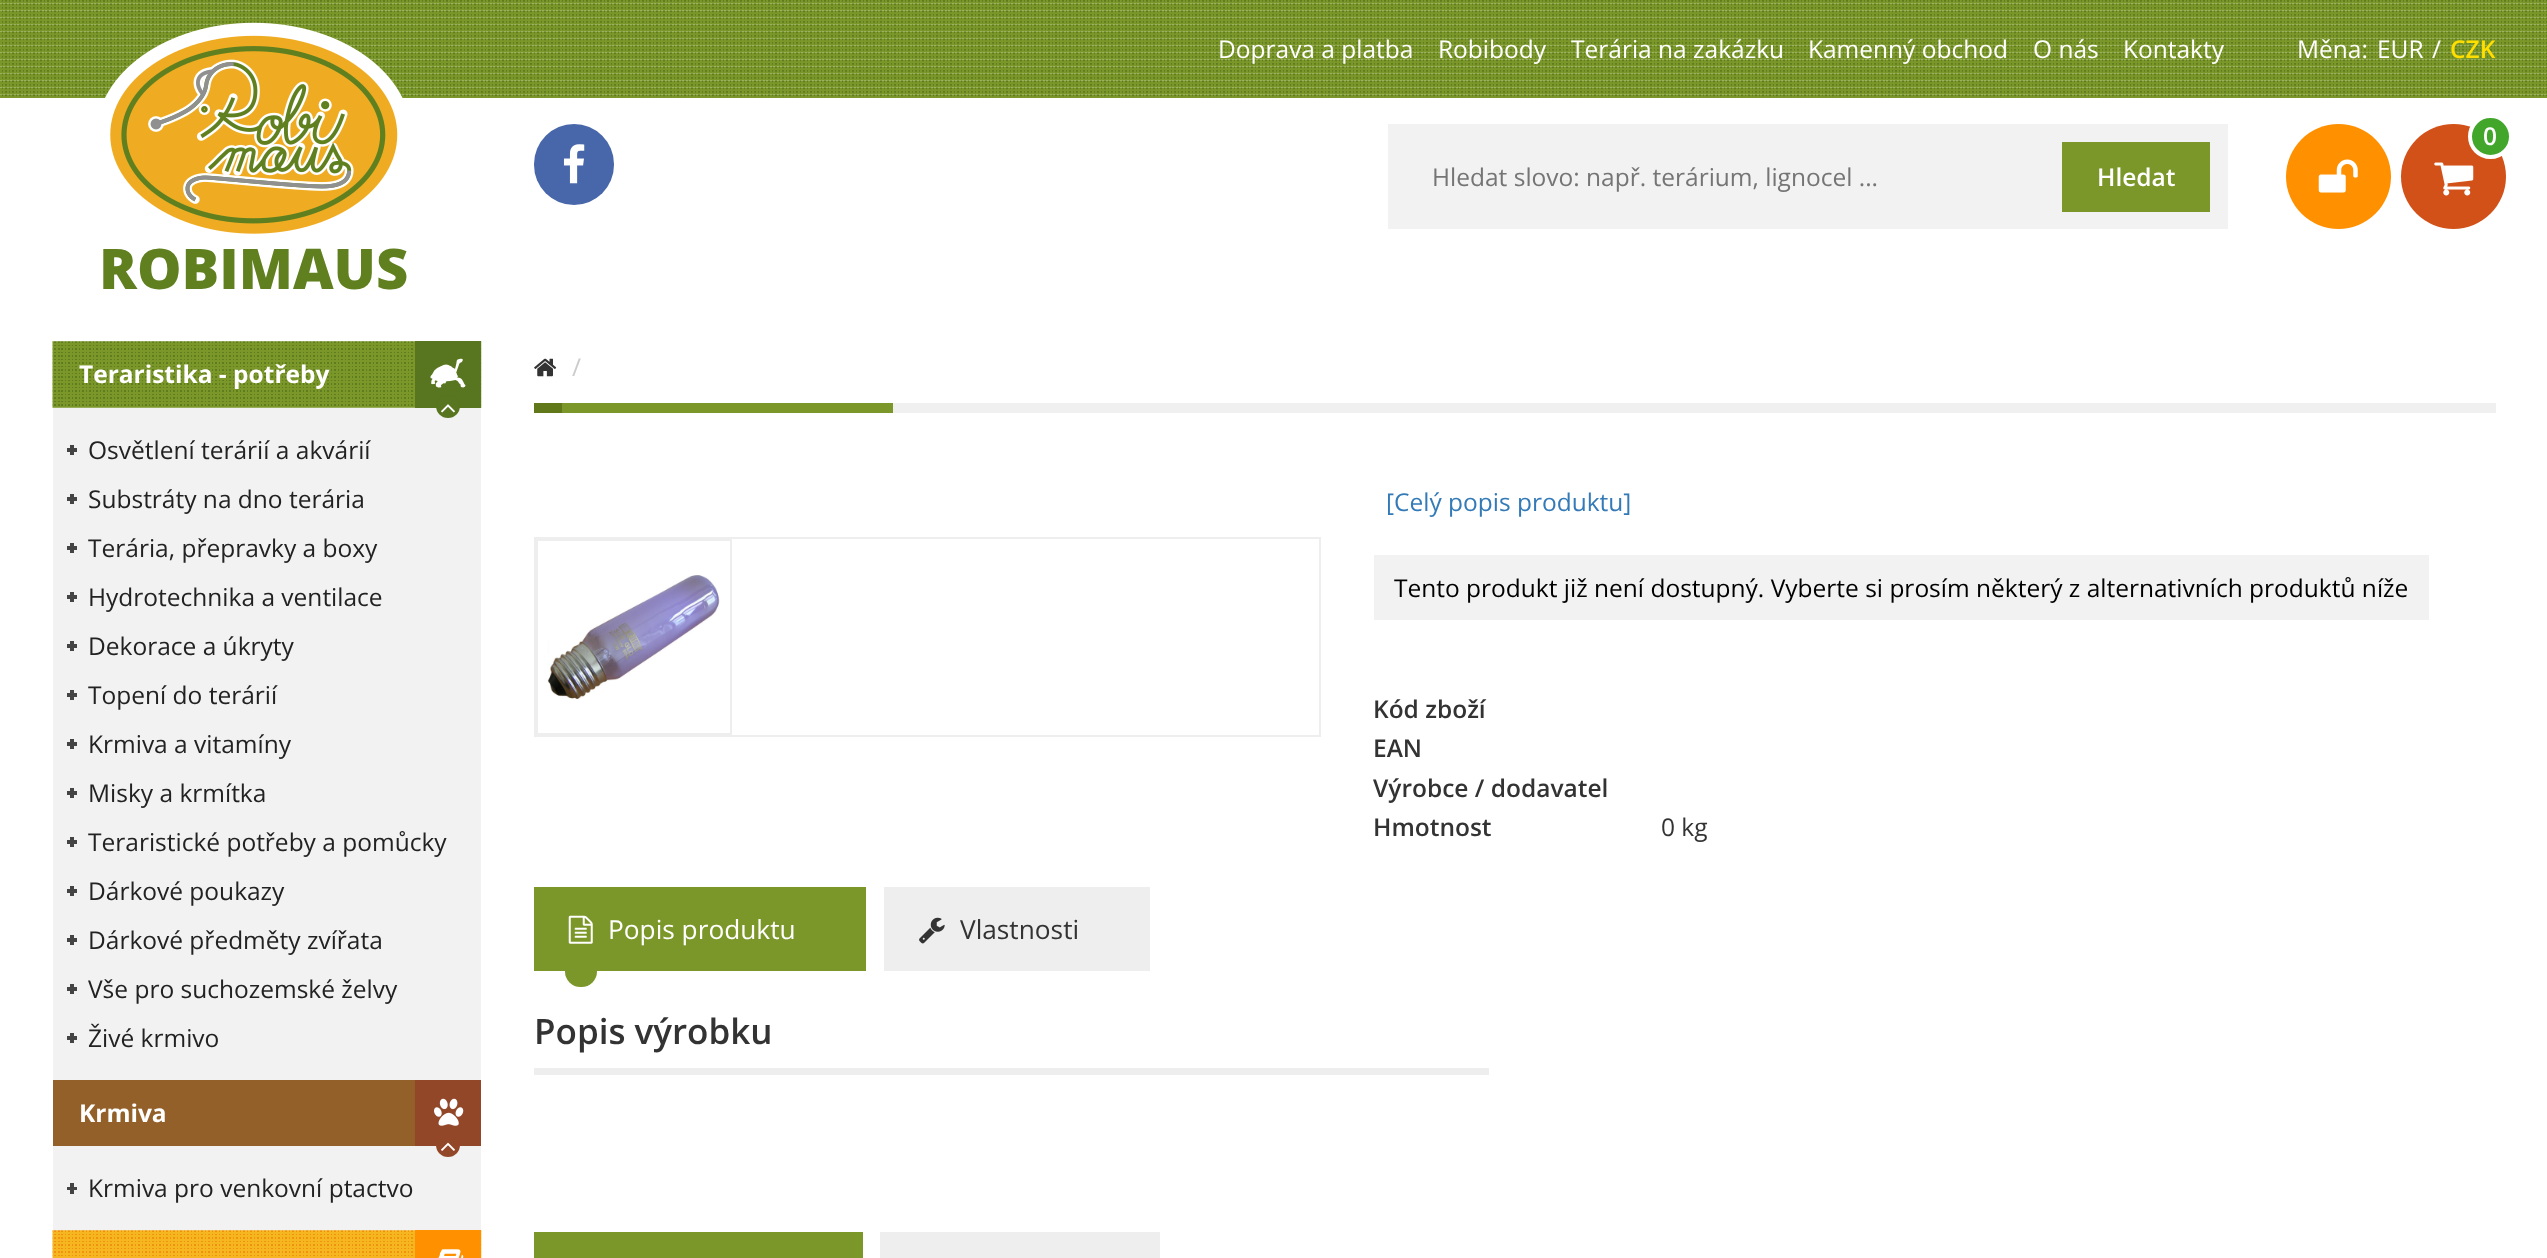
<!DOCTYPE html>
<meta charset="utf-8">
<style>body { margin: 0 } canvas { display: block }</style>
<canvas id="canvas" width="2547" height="1258"></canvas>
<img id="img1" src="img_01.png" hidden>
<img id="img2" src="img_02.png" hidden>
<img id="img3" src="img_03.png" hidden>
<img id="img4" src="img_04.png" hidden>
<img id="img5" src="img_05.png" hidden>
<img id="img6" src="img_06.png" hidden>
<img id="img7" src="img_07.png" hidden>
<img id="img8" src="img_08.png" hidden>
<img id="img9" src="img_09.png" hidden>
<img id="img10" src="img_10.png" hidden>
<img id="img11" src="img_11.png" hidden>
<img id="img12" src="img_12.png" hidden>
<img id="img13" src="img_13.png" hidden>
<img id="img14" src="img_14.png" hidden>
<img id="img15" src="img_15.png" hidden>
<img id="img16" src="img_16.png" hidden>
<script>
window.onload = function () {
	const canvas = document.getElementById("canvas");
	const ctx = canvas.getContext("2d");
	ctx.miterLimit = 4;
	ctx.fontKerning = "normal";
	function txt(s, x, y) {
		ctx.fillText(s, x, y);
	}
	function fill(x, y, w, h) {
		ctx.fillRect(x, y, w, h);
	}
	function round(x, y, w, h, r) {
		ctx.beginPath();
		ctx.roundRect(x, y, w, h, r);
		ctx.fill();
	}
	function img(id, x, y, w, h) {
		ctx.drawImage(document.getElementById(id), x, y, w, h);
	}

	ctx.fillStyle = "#FFFFFF";
	fill(0, 0, 2547, 1258);
	img("img1", 0, 0, 2547, 98);
	ctx.fillStyle = "#4867AA";
	round(534, 124, 80, 81, 40);
	img("img2", 563, 144, 22, 40);
	ctx.fillStyle = "#FF9000";
	ctx.beginPath();
	ctx.arc(2338.5, 176.5, 52.5, 0, Math.PI * 2);
	ctx.fill();
	img("img3", 2318, 159, 40, 34);
	ctx.fillStyle = "#D25119";
	ctx.beginPath();
	ctx.arc(2453.5, 176.5, 52.5, 0, Math.PI * 2);
	ctx.fill();
	img("img4", 2434, 162, 40, 34);
	ctx.fillStyle = "#41A62A";
	ctx.beginPath();
	ctx.arc(2490.5, 136.5, 20.5, 0, Math.PI * 2);
	ctx.fill();
	ctx.strokeStyle = "#FFFFFF";
	ctx.lineWidth = 4;
	ctx.stroke();
	ctx.fillStyle = "#F2F2F2";
	fill(1388, 124, 840, 105);
	ctx.fillStyle = "#7C9729";
	fill(2062, 142, 148, 70);
	img("img5", 105, 22, 298, 212);
	ctx.fillStyle = "#F2F2F2";
	fill(53, 341, 428, 890);
	img("img6", 52, 341, 430, 67);
	ctx.fillStyle = "#58751F";
	fill(415, 341, 66, 67);
	img("img7", 430, 358, 36, 30);
	ctx.beginPath();
	ctx.arc(448, 406, 12, 0, Math.PI * 2);
	ctx.fill();
	img("img8", 441, 404, 14, 9);
	ctx.fillStyle = "#444444";
	fill(70, 445, 4, 10);
	fill(67, 448, 10, 4);
	fill(70, 494, 4, 10);
	fill(67, 497, 10, 4);
	fill(70, 543, 4, 10);
	fill(67, 546, 10, 4);
	fill(70, 592, 4, 10);
	fill(67, 595, 10, 4);
	fill(70, 641, 4, 10);
	fill(67, 644, 10, 4);
	fill(70, 690, 4, 10);
	fill(67, 693, 10, 4);
	fill(70, 739, 4, 10);
	fill(67, 742, 10, 4);
	fill(70, 788, 4, 10);
	fill(67, 791, 10, 4);
	fill(70, 837, 4, 10);
	fill(67, 840, 10, 4);
	fill(70, 886, 4, 10);
	fill(67, 889, 10, 4);
	fill(70, 935, 4, 10);
	fill(67, 938, 10, 4);
	fill(70, 984, 4, 10);
	fill(67, 987, 10, 4);
	fill(70, 1033, 4, 10);
	fill(67, 1036, 10, 4);
	ctx.fillStyle = "#936029";
	fill(53, 1080, 362, 66);
	ctx.fillStyle = "#934729";
	fill(415, 1080, 66, 66);
	img("img9", 434, 1098, 30, 28);
	round(436, 1132, 24, 25, 12);
	img("img10", 441, 1142, 14, 9);
	ctx.fillStyle = "#444444";
	fill(70, 1183, 4, 11);
	fill(67, 1187, 10, 3);
	img("img11", 52, 1230, 430, 28);
	ctx.fillStyle = "#FF9000";
	fill(415, 1230, 66, 28);
	img("img12", 438, 1249, 26, 9);
	ctx.fillStyle = "#F0F0F0";
	fill(893, 403, 1603, 10);
	img("img13", 534, 358, 23, 19);
	ctx.fillStyle = "#7C9729";
	fill(562, 403, 331, 10);
	ctx.fillStyle = "#60771A";
	fill(534, 403, 28, 10);
	ctx.strokeStyle = "#EEEEEE";
	ctx.lineWidth = 2;
	ctx.strokeRect(535, 538, 785, 198);
	ctx.strokeRect(537, 540, 194, 194);
	img("img14", 547, 575, 173, 124);
	ctx.fillStyle = "#F2F2F2";
	fill(1374, 555, 1055, 65);
	ctx.fillStyle = "#7C9729";
	fill(534, 887, 332, 84);
	img("img15", 568, 915, 25, 29);
	round(565, 956, 32, 31, 15.5);
	ctx.fillStyle = "#EEEEEE";
	fill(884, 887, 266, 84);
	img("img16", 919, 917, 26, 27);
	fill(534, 1068, 955, 7);
	ctx.fillStyle = "#7C9729";
	fill(534, 1232, 329, 26);
	ctx.fillStyle = "#EEEEEE";
	fill(880, 1232, 280, 26);
	ctx.font = "24.5px Open Sans";
	ctx.fillStyle = "#FFFFFF";
	txt("Doprava a platba", 1218, 58);
	txt("Robibody", 1438, 58);
	txt("Terária na zakázku", 1571, 58);
	txt("Kamenný obchod", 1808, 58);
	txt("O nás", 2033, 58);
	txt("Kontakty", 2123, 58);
	txt("Měna:", 2297, 58);
	txt("EUR", 2377, 58);
	txt("/", 2432, 58);
	ctx.font = "600 24.5px Open Sans";
	ctx.fillStyle = "#FFDE00";
	txt("CZK", 2450, 58);
	ctx.fillStyle = "#FFFFFF";
	txt("0", 2483, 145);
	ctx.font = "24.5px Open Sans";
	ctx.fillStyle = "#757575";
	txt("Hledat slovo: např. terárium, lignocel ...", 1432, 186);
	ctx.font = "600 24.5px Open Sans";
	ctx.fillStyle = "#FFFFFF";
	txt("Hledat", 2097, 186);
	ctx.font = "800 56px Open Sans";
	ctx.fillStyle = "#608020";
	txt("ROBIMAUS", 99, 289);
	ctx.font = "bold 24.5px Open Sans";
	ctx.fillStyle = "#FFFFFF";
	txt("Teraristika - potřeby", 79, 383);
	ctx.font = "24.5px Open Sans";
	ctx.fillStyle = "#222222";
	txt("Osvětlení terárií a akvárií", 88, 459);
	txt("Substráty na dno terária", 88, 508);
	txt("Terária, přepravky a boxy", 88, 557);
	txt("Hydrotechnika a ventilace", 88, 606);
	txt("Dekorace a úkryty", 88, 655);
	txt("Topení do terárií", 88, 704);
	txt("Krmiva a vitamíny", 88, 753);
	txt("Misky a krmítka", 88, 802);
	txt("Teraristické potřeby a pomůcky", 88, 851);
	txt("Dárkové poukazy", 88, 900);
	txt("Dárkové předměty zvířata", 88, 949);
	txt("Vše pro suchozemské želvy", 88, 998);
	txt("Živé krmivo", 88, 1047);
	ctx.font = "bold 24.5px Open Sans";
	ctx.fillStyle = "#FFFFFF";
	txt("Krmiva", 79, 1122);
	ctx.font = "24.5px Open Sans";
	ctx.fillStyle = "#222222";
	txt("Krmiva pro venkovní ptactvo", 88, 1197);
	ctx.fillStyle = "#CCCCCC";
	txt("/", 572, 376);
	ctx.fillStyle = "#337AB7";
	txt("[Celý popis produktu]", 1386, 511);
	ctx.fillStyle = "#000000";
	txt("Tento produkt již není dostupný. Vyberte si prosím některý z alternativních produktů níže", 1394, 597);
	ctx.font = "600 24.5px Open Sans";
	ctx.fillStyle = "#333333";
	txt("Kód zboží", 1373, 718);
	txt("EAN", 1373, 757);
	txt("Výrobce / dodavatel", 1373, 797);
	txt("Hmotnost", 1373, 836);
	ctx.font = "24.5px Open Sans";
	txt("0 kg", 1661, 836);
	ctx.font = "26.25px Open Sans";
	ctx.fillStyle = "#FFFFFF";
	txt("Popis produktu", 608, 939);
	ctx.fillStyle = "#333333";
	txt("Vlastnosti", 960, 939);
	ctx.font = "600 35px Open Sans";
	txt("Popis výrobku", 534, 1044);
};
</script>
